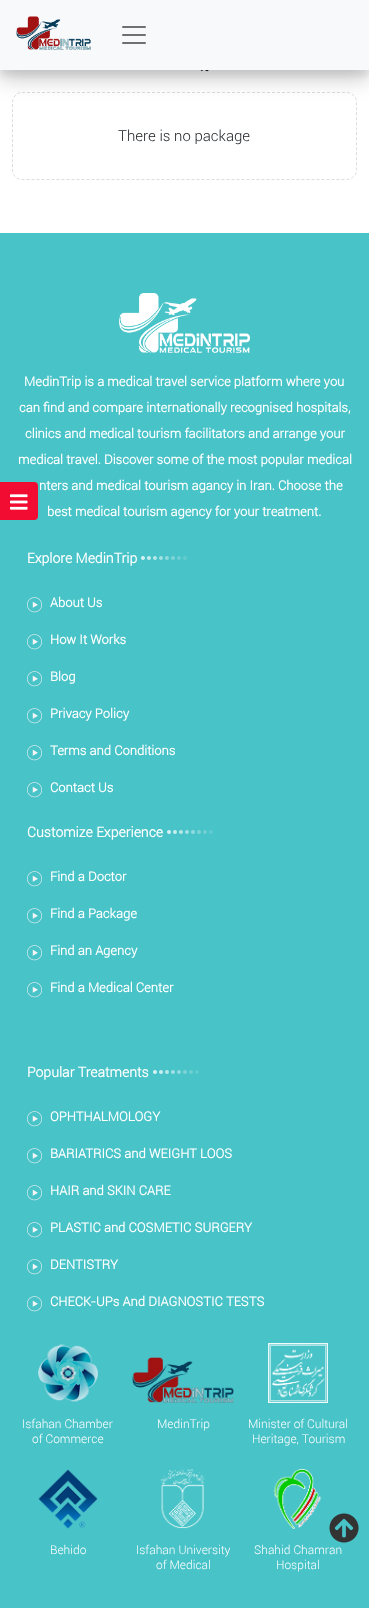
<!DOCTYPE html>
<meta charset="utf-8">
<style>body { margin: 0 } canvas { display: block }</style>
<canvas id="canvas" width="369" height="1608"></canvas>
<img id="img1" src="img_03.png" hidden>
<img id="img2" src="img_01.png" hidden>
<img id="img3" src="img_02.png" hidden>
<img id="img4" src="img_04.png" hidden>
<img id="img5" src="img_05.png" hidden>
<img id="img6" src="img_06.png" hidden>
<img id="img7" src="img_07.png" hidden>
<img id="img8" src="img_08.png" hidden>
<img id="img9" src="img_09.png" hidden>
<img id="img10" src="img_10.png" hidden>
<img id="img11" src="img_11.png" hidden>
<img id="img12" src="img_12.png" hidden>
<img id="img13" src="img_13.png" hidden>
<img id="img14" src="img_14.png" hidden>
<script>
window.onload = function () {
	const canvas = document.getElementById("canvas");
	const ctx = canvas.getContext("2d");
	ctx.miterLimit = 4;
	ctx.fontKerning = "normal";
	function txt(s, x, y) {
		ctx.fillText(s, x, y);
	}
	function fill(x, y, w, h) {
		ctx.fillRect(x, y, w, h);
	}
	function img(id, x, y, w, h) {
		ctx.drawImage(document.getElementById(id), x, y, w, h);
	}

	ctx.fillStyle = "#FFFFFF";
	fill(0, 0, 369, 1608);
	img("img1", 200, 70, 9, 2);
	ctx.fillStyle = "rgba(0, 0, 0, 0.07)";
	ctx.filter = "blur(3px)";
	ctx.beginPath();
	ctx.rect(0, 6, 369, 70);
	ctx.fill();
	ctx.filter = "none";
	ctx.beginPath();
	ctx.moveTo(22, 92.5);
	ctx.lineTo(347, 92.5);
	ctx.bezierCurveTo(352, 92.5, 356.5, 97, 356.5, 102);
	ctx.lineTo(356.5, 170);
	ctx.bezierCurveTo(356.5, 175, 352, 179.5, 347, 179.5);
	ctx.lineTo(22, 179.5);
	ctx.bezierCurveTo(17, 179.5, 12.5, 175, 12.5, 170);
	ctx.lineTo(12.5, 102);
	ctx.bezierCurveTo(12.5, 97, 17, 92.5, 22, 92.5);
	ctx.closePath();
	ctx.strokeStyle = "#DDDDDD";
	ctx.setLineDash([3, 2]);
	ctx.stroke();
	ctx.fillStyle = "rgba(0, 0, 0, 0.19)";
	ctx.filter = "blur(10px)";
	ctx.beginPath();
	ctx.rect(0, 10, 369, 70);
	ctx.fill();
	ctx.filter = "none";
	ctx.fillStyle = "#F8F9FA";
	fill(0, 0, 369, 70);
	img("img2", 16, 16, 75, 34);
	img("img3", 122, 26, 24, 18);
	ctx.fillStyle = "#48C3C8";
	fill(0, 233, 369, 1375);
	ctx.fillStyle = "#F20C32";
	ctx.beginPath();
	ctx.roundRect(0, 482, 38, 38, [0, 4, 4, 0]);
	ctx.fill();
	img("img4", 10, 494, 18, 16);
	img("img5", 119, 293, 131, 60);
	img("img6", 141, 556, 46, 4);
	img("img7", 27, 597, 15, 16);
	img("img7", 27, 634, 15, 16);
	img("img7", 27, 671, 15, 16);
	img("img7", 27, 708, 15, 16);
	img("img7", 27, 745, 15, 16);
	img("img7", 27, 782, 15, 16);
	img("img6", 167, 830, 46, 4);
	img("img7", 27, 871, 15, 16);
	img("img7", 27, 908, 15, 16);
	img("img7", 27, 945, 15, 16);
	img("img7", 27, 982, 15, 16);
	img("img6", 153, 1070, 46, 4);
	img("img7", 27, 1111, 15, 16);
	img("img7", 27, 1148, 15, 16);
	img("img7", 27, 1185, 15, 16);
	img("img7", 27, 1222, 15, 16);
	img("img7", 27, 1259, 15, 16);
	img("img7", 27, 1296, 15, 16);
	img("img8", 38, 1344, 60, 58);
	img("img9", 132, 1357, 102, 46);
	img("img10", 268, 1343, 60, 60);
	img("img11", 38, 1469, 60, 60);
	img("img12", 159, 1469, 46, 60);
	img("img13", 273, 1469, 48, 60);
	img("img14", 329, 1513, 30, 30);
	ctx.font = "300 15px Roboto";
	ctx.fillStyle = "#212529";
	txt("There is no package", 118, 141);
	ctx.font = "bold 13px Roboto";
	ctx.fillStyle = "#FFFFFF";
	txt("MedinTrip is a medical travel service platform where you", 24, 386);
	txt("can find and compare internationally recognised hospitals,", 19, 412);
	txt("clinics and medical tourism facilitators and arrange your", 25, 438);
	txt("medical travel. Discover some of the most popular medical", 18, 464);
	txt("nters and medical tourism agancy in Iran. Choose the", 39, 490);
	txt("best medical tourism agency for your treatment.", 47, 516);
	ctx.font = "bold 14px Roboto";
	txt("Explore MedinTrip", 27, 563);
	ctx.font = "bold 13px Roboto";
	txt("About Us", 50, 607);
	txt("How It Works", 50, 644);
	txt("Blog", 50, 681);
	txt("Privacy Policy", 50, 718);
	txt("Terms and Conditions", 50, 755);
	txt("Contact Us", 50, 792);
	ctx.font = "bold 14px Roboto";
	txt("Customize Experience", 27, 837);
	ctx.font = "bold 13px Roboto";
	txt("Find a Doctor", 50, 881);
	txt("Find a Package", 50, 918);
	txt("Find an Agency", 50, 955);
	txt("Find a Medical Center", 50, 992);
	ctx.font = "bold 14px Roboto";
	txt("Popular Treatments", 27, 1077);
	ctx.font = "bold 13px Roboto";
	txt("OPHTHALMOLOGY", 50, 1121);
	txt("BARIATRICS and WEIGHT LOOS", 50, 1158);
	txt("HAIR and SKIN CARE", 50, 1195);
	txt("PLASTIC and COSMETIC SURGERY", 50, 1232);
	txt("DENTISTRY", 50, 1269);
	txt("CHECK-UPs And DIAGNOSTIC TESTS", 50, 1306);
	ctx.font = "300 12px Roboto";
	txt("Isfahan Chamber", 22, 1428);
	txt("of Commerce", 32, 1443);
	txt("MedinTrip", 157, 1428);
	txt("Minister of Cultural", 248, 1428);
	txt("Heritage, Tourism", 252, 1443);
	txt("Behido", 50, 1554);
	txt("Isfahan University", 136, 1554);
	txt("of Medical", 156, 1569);
	txt("Shahid Chamran", 254, 1554);
	txt("Hospital", 276, 1569);
};
</script>
